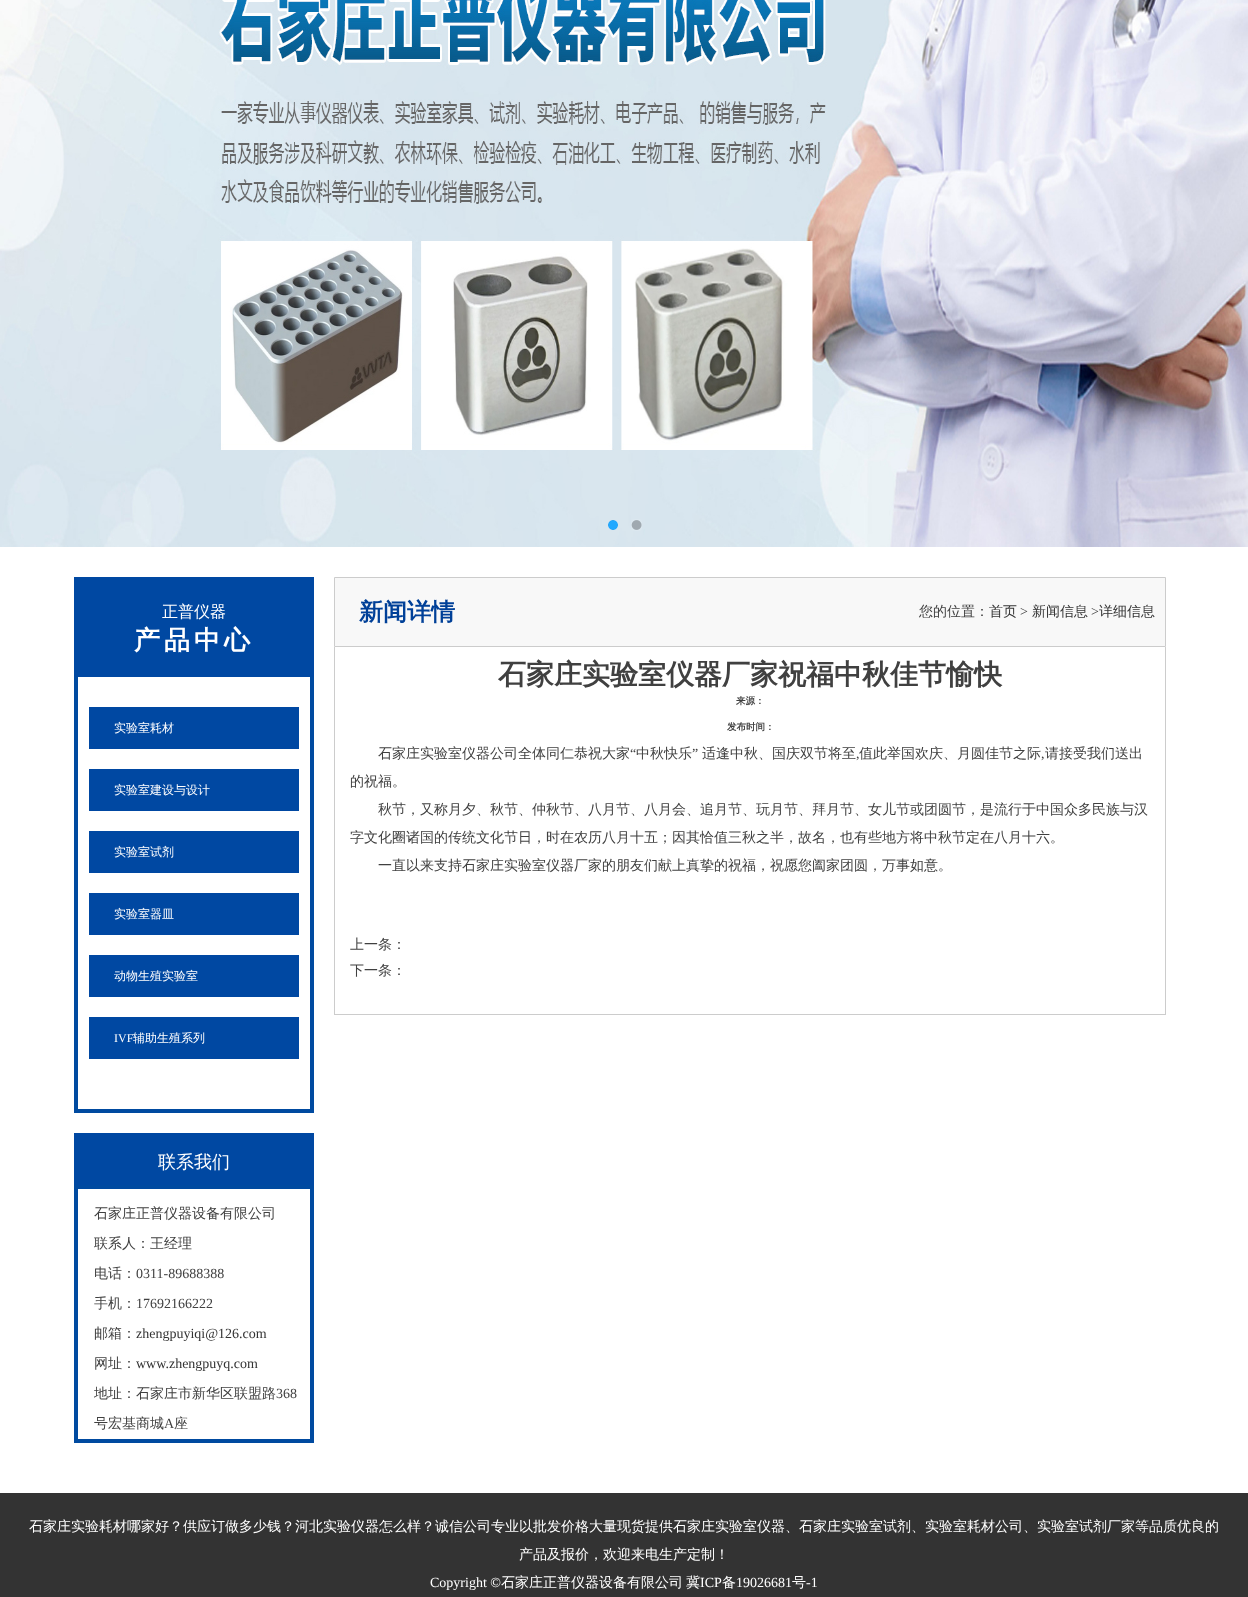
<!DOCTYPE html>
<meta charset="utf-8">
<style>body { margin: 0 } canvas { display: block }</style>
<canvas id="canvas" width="1248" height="1597"></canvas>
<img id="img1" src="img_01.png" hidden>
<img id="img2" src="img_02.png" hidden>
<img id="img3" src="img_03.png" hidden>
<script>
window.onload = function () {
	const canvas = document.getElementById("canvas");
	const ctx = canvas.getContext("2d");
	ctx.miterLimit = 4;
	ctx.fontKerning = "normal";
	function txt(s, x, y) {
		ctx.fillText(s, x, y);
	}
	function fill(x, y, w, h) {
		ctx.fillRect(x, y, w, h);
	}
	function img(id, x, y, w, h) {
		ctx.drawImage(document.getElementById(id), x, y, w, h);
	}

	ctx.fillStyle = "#FFFFFF";
	fill(0, 0, 1248, 1597);
	img("img1", 0, 0, 1248, 547);
	img("img2", 608, 520, 10, 10);
	img("img3", 631, 519, 11, 12);
	ctx.fillStyle = "#0048A2";
	fill(74, 577, 240, 100);
	ctx.fillStyle = "#004AA0";
	fill(310, 677, 4, 436);
	fill(74, 1109, 240, 4);
	fill(74, 677, 4, 436);
	ctx.fillStyle = "#0048A2";
	fill(89, 707, 210, 42);
	fill(89, 769, 210, 42);
	fill(89, 831, 210, 42);
	fill(89, 893, 210, 42);
	fill(89, 955, 210, 42);
	fill(89, 1017, 210, 42);
	fill(74, 1133, 240, 52);
	ctx.strokeStyle = "#004AA0";
	ctx.lineWidth = 4;
	ctx.strokeRect(76, 1187, 236, 254);
	ctx.fillStyle = "#F8F8F8";
	ctx.beginPath();
	ctx.rect(334.5, 577.5, 831, 69);
	ctx.fill();
	ctx.strokeStyle = "#CCCCCC";
	ctx.lineWidth = 1;
	ctx.stroke();
	ctx.fillStyle = "#CCCCCC";
	fill(1165, 647, 1, 368);
	fill(334, 1014, 832, 1);
	fill(334, 647, 1, 368);
	ctx.fillStyle = "#333333";
	fill(0, 1493, 1248, 104);
	ctx.font = "500 16px WenQuanYi Zen Hei";
	ctx.fillStyle = "#FFFFFF";
	txt("正普仪器", 162, 617);
	ctx.letterSpacing = "4px";
	ctx.font = "bold 26px WenQuanYi Zen Hei";
	txt("产品中心", 134, 649);
	ctx.letterSpacing = "0px";
	ctx.font = "500 12px WenQuanYi Zen Hei";
	txt("实验室耗材", 114, 732);
	txt("实验室建设与设计", 114, 794);
	txt("实验室试剂", 114, 856);
	txt("实验室器皿", 114, 918);
	txt("动物生殖实验室", 114, 980);
	ctx.font = "12px Liberation Serif";
	txt("IVF", 114, 1042);
	ctx.font = "500 12px WenQuanYi Zen Hei";
	txt("辅助生殖系列", 133, 1042);
	ctx.font = "500 18px WenQuanYi Zen Hei";
	txt("联系我们", 158, 1168);
	ctx.font = "500 14px WenQuanYi Zen Hei";
	ctx.fillStyle = "#404040";
	txt("石家庄正普仪器设备有限公司", 94, 1218);
	txt("联系人：王经理", 94, 1248);
	txt("电话：", 94, 1278);
	ctx.font = "14px Liberation Serif";
	txt("0311-89688388", 136, 1278);
	ctx.font = "500 14px WenQuanYi Zen Hei";
	txt("手机：", 94, 1308);
	ctx.font = "14px Liberation Serif";
	txt("17692166222", 136, 1308);
	ctx.font = "500 14px WenQuanYi Zen Hei";
	txt("邮箱：", 94, 1338);
	ctx.font = "14px Liberation Serif";
	ctx.fillStyle = "#333333";
	txt("zhengpuyiqi@126.com", 136, 1338);
	ctx.font = "500 14px WenQuanYi Zen Hei";
	ctx.fillStyle = "#404040";
	txt("网址：", 94, 1368);
	ctx.font = "14px Liberation Serif";
	ctx.fillStyle = "#333333";
	txt("www.zhengpuyq.com", 136, 1368);
	ctx.font = "500 14px WenQuanYi Zen Hei";
	ctx.fillStyle = "#404040";
	txt("地址：石家庄市新华区联盟路", 94, 1398);
	ctx.font = "14px Liberation Serif";
	txt("368", 276, 1398);
	ctx.font = "500 14px WenQuanYi Zen Hei";
	txt("号宏基商城", 94, 1428);
	ctx.font = "14px Liberation Serif";
	txt("A", 164, 1428);
	ctx.font = "500 14px WenQuanYi Zen Hei";
	txt("座", 174, 1428);
	ctx.font = "bold 24px WenQuanYi Zen Hei";
	ctx.fillStyle = "#004098";
	txt("新闻详情", 359, 620);
	ctx.font = "500 14px WenQuanYi Zen Hei";
	ctx.fillStyle = "#404040";
	txt("您的位置：", 919, 616);
	ctx.fillStyle = "#333333";
	txt("首页", 989, 616);
	ctx.font = "14px Liberation Serif";
	ctx.fillStyle = "#404040";
	txt(">", 1020, 616);
	ctx.font = "500 14px WenQuanYi Zen Hei";
	ctx.fillStyle = "#333333";
	txt("新闻信息", 1032, 616);
	ctx.font = "14px Liberation Serif";
	ctx.fillStyle = "#404040";
	txt(">", 1091, 616);
	ctx.font = "500 14px WenQuanYi Zen Hei";
	ctx.fillStyle = "#333333";
	txt("详细信息", 1099, 616);
	ctx.font = "bold 28px WenQuanYi Zen Hei";
	ctx.fillStyle = "#404040";
	txt("石家庄实验室仪器厂家祝福中秋佳节愉快", 498, 684);
	ctx.font = "bold 9.5px WenQuanYi Zen Hei";
	txt("来源：", 736, 704);
	txt("发布时间：", 727, 730);
	ctx.font = "500 14px WenQuanYi Zen Hei";
	txt("石家庄实验室仪器公司全体同仁恭祝大家", 378, 758);
	ctx.font = "14px Liberation Serif";
	txt("“", 630, 758);
	ctx.font = "500 14px WenQuanYi Zen Hei";
	txt("中秋快乐", 636, 758);
	ctx.font = "14px Liberation Serif";
	txt("”", 692, 758);
	ctx.font = "500 14px WenQuanYi Zen Hei";
	txt("适逢中秋、国庆双节将至", 702, 758);
	txt("值此举国欢庆、月圆佳节之际", 859, 758);
	txt("请接受我们送出", 1045, 758);
	ctx.font = "14px Liberation Serif";
	txt(",", 856, 758);
	txt(",", 1041, 758);
	ctx.font = "500 14px WenQuanYi Zen Hei";
	txt("的祝福。", 350, 786);
	txt("秋节，又称月夕、秋节、仲秋节、八月节、八月会、追月节、玩月节、拜月节、女儿节或团圆节，是流行于中国众多民族与汉", 378, 814);
	txt("字文化圈诸国的传统文化节日，时在农历八月十五；因其恰值三秋之半，故名，也有些地方将中秋节定在八月十六。", 350, 842);
	txt("一直以来支持石家庄实验室仪器厂家的朋友们献上真挚的祝福，祝愿您阖家团圆，万事如意。", 378, 870);
	txt("上一条：", 350, 949);
	txt("下一条：", 350, 975);
	ctx.fillStyle = "#FFFFFF";
	txt("石家庄实验耗材哪家好？供应订做多少钱？河北实验仪器怎么样？诚信公司专业以批发价格大量现货提供石家庄实验室仪器、石家庄实验室试剂、实验室耗材公司、实验室试剂厂家等品质优良的", 29, 1531);
	txt("产品及报价，欢迎来电生产定制！", 519, 1559);
	ctx.font = "14px Liberation Serif";
	txt("Copyright ©", 430, 1587);
	ctx.font = "500 14px WenQuanYi Zen Hei";
	txt("石家庄正普仪器设备有限公司", 501, 1587);
	txt("冀", 686, 1587);
	ctx.font = "14px Liberation Serif";
	txt("ICP", 700, 1587);
	ctx.font = "500 14px WenQuanYi Zen Hei";
	txt("备", 722, 1587);
	ctx.font = "14px Liberation Serif";
	txt("19026681", 736, 1587);
	ctx.font = "500 14px WenQuanYi Zen Hei";
	txt("号", 792, 1587);
	ctx.font = "14px Liberation Serif";
	txt("-1", 806, 1587);
};
</script>
